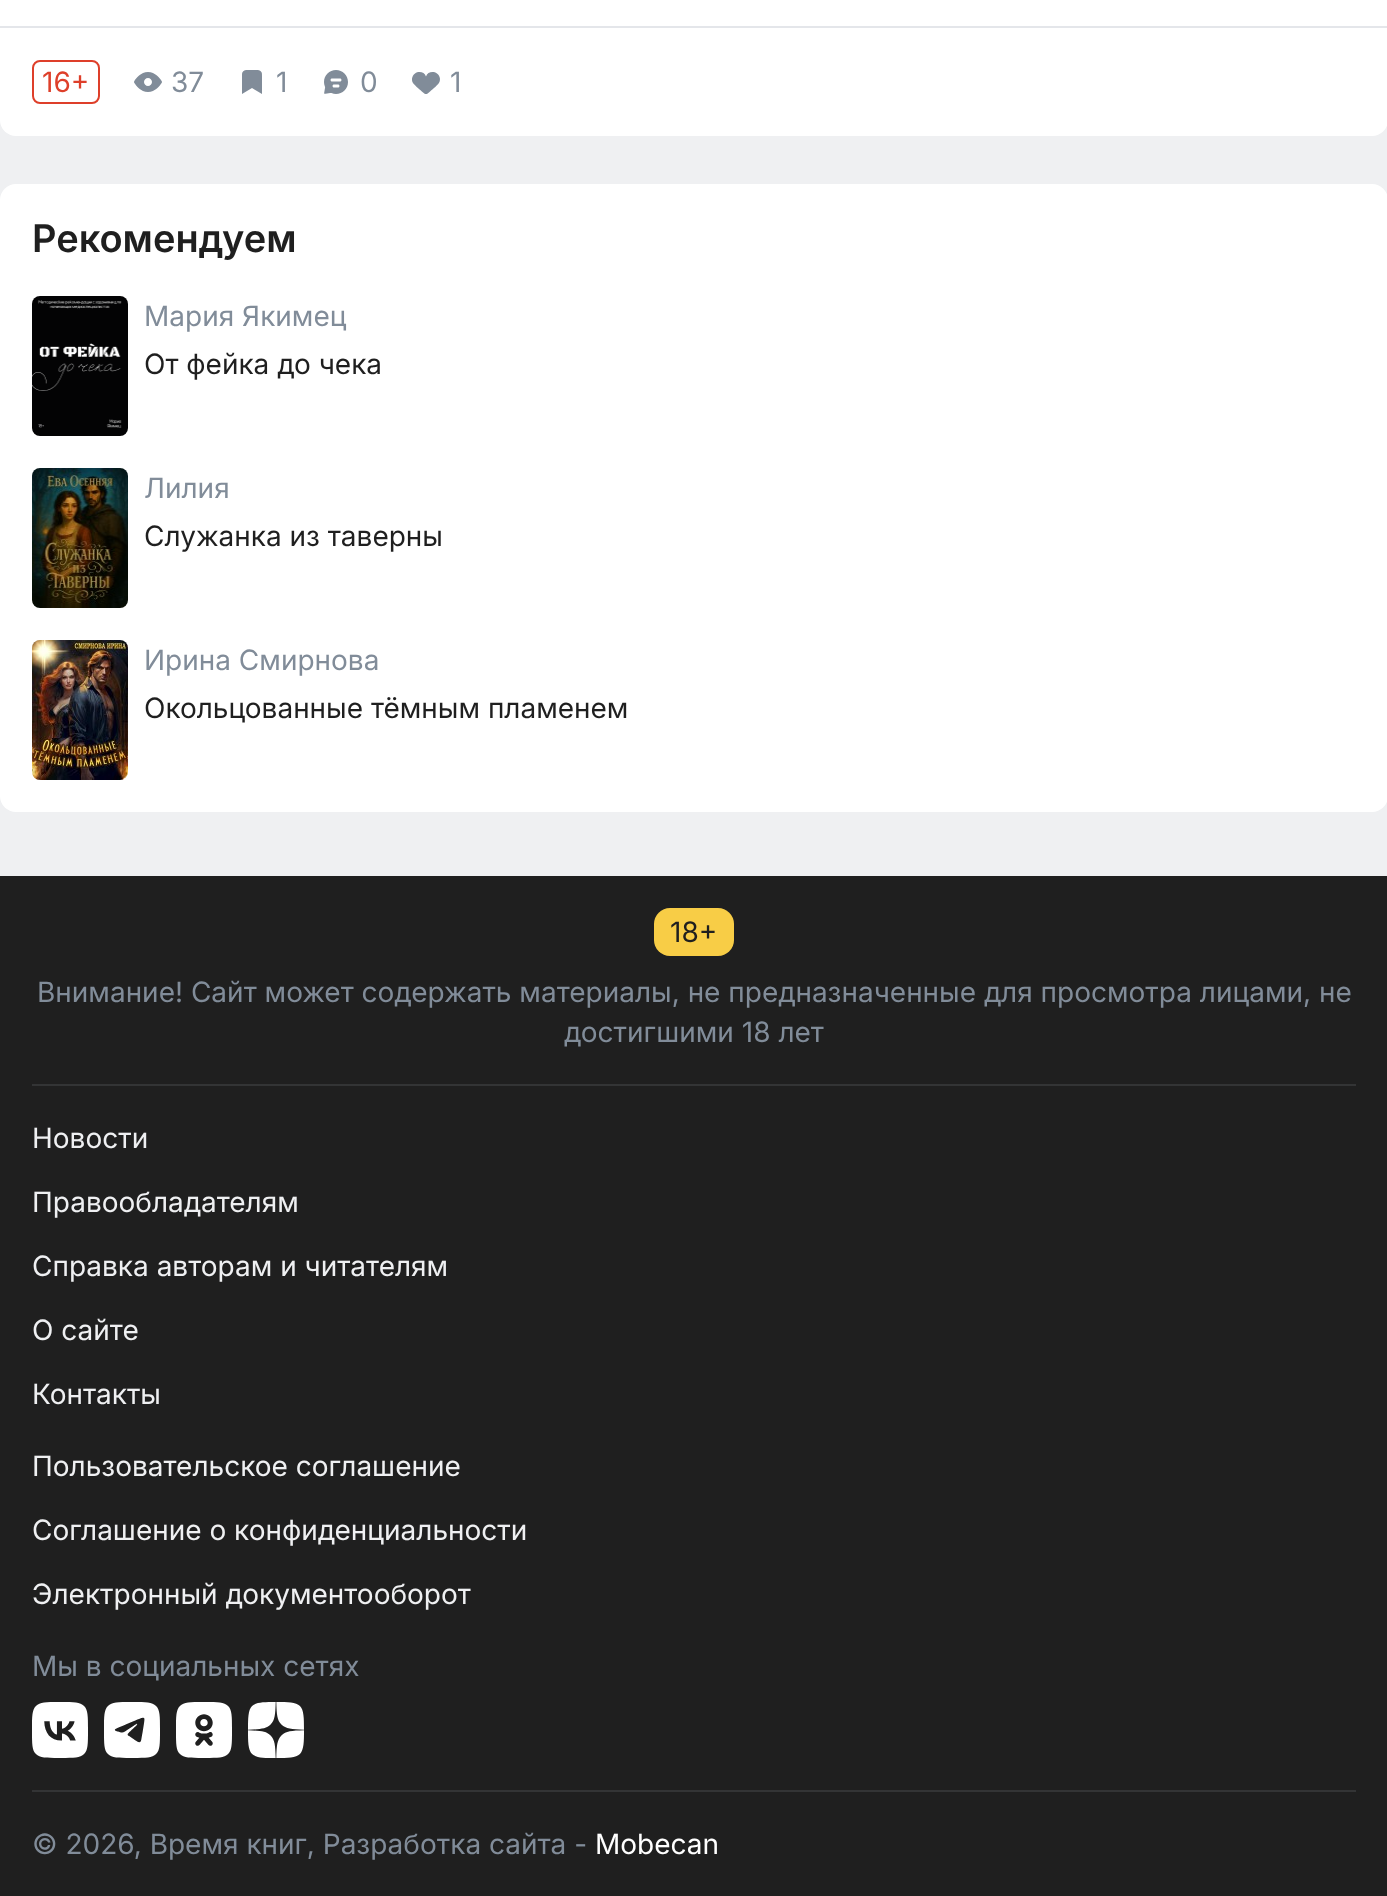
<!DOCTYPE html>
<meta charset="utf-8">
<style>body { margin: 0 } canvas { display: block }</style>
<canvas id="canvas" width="1387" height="1896"></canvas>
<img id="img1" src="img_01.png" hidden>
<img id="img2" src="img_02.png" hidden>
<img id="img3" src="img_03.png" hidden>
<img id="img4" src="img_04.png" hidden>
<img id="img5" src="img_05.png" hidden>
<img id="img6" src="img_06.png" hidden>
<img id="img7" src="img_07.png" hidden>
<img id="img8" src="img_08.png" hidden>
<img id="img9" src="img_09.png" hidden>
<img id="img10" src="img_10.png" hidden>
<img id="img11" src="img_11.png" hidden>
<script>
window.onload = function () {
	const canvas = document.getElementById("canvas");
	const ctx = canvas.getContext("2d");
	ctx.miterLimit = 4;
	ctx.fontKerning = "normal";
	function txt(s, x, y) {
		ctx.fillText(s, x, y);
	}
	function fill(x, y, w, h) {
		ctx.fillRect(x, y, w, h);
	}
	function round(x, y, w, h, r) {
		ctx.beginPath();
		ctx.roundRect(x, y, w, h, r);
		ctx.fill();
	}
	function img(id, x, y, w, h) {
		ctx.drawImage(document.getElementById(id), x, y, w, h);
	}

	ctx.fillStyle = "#EFF0F2";
	fill(0, 0, 1387, 1896);
	ctx.fillStyle = "#FFFFFF";
	round(0, -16, 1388, 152, 16);
	ctx.fillStyle = "#E4E6EA";
	fill(0, 26, 1387, 2);
	ctx.beginPath();
	ctx.roundRect(33, 61, 66, 42, 7);
	ctx.strokeStyle = "#DE3F2A";
	ctx.lineWidth = 2;
	ctx.stroke();
	img("img1", 134, 72, 28, 20);
	img("img2", 242, 70, 20, 24);
	img("img3", 324, 70, 24, 24);
	img("img4", 412, 72, 28, 22);
	ctx.fillStyle = "#FFFFFF";
	round(0, 184, 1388, 628, 16);
	img("img5", 32, 296, 96, 140);
	img("img6", 32, 468, 96, 140);
	img("img7", 32, 640, 96, 140);
	ctx.fillStyle = "#1F1F1F";
	fill(0, 876, 1387, 1020);
	ctx.fillStyle = "#F8CD46";
	round(654, 908, 80, 48, 16);
	ctx.fillStyle = "#333435";
	fill(32, 1084, 1324, 2);
	fill(32, 1790, 1324, 2);
	img("img8", 32, 1702, 56, 56);
	img("img9", 104, 1702, 56, 56);
	img("img10", 176, 1702, 56, 56);
	img("img11", 248, 1702, 56, 56);
	ctx.font = "28px Inter";
	ctx.fillStyle = "#DE3F2A";
	txt("16+", 42, 92);
	ctx.fillStyle = "#818C99";
	txt("37", 171, 92);
	txt("1", 276, 92);
	txt("0", 360, 92);
	txt("1", 450, 92);
	ctx.font = "600 38px Inter";
	ctx.fillStyle = "#1F1F1F";
	txt("Рекомендуем", 32, 252);
	ctx.font = "28px Inter";
	ctx.fillStyle = "#818C99";
	txt("Мария Якимец", 144, 326);
	ctx.fillStyle = "#1F1F1F";
	txt("От фейка до чека", 144, 374);
	ctx.fillStyle = "#818C99";
	txt("Лилия", 144, 498);
	ctx.fillStyle = "#1F1F1F";
	txt("Служанка из таверны", 144, 546);
	ctx.fillStyle = "#818C99";
	txt("Ирина Смирнова", 144, 670);
	ctx.fillStyle = "#1F1F1F";
	txt("Окольцованные тёмным пламенем", 144, 718);
	txt("18+", 670, 942);
	ctx.fillStyle = "#818C99";
	txt("Внимание! Сайт может содержать материалы, не предназначенные для просмотра лицами, не", 37, 1002);
	txt("достигшими 18 лет", 564, 1042);
	ctx.fillStyle = "#EFF0F2";
	txt("Новости", 32, 1148);
	txt("Правообладателям", 32, 1212);
	txt("Справка авторам и читателям", 32, 1276);
	txt("О сайте", 32, 1340);
	txt("Контакты", 32, 1404);
	txt("Пользовательское соглашение", 32, 1476);
	txt("Соглашение о конфиденциальности", 32, 1540);
	txt("Электронный документооборот", 32, 1604);
	ctx.fillStyle = "#818C99";
	txt("Мы в социальных сетях", 32, 1676);
	txt("© 2026, Время книг, Разработка сайта -", 32, 1854);
	ctx.fillStyle = "#FFFFFF";
	txt("Mobecan", 595, 1854);
};
</script>
